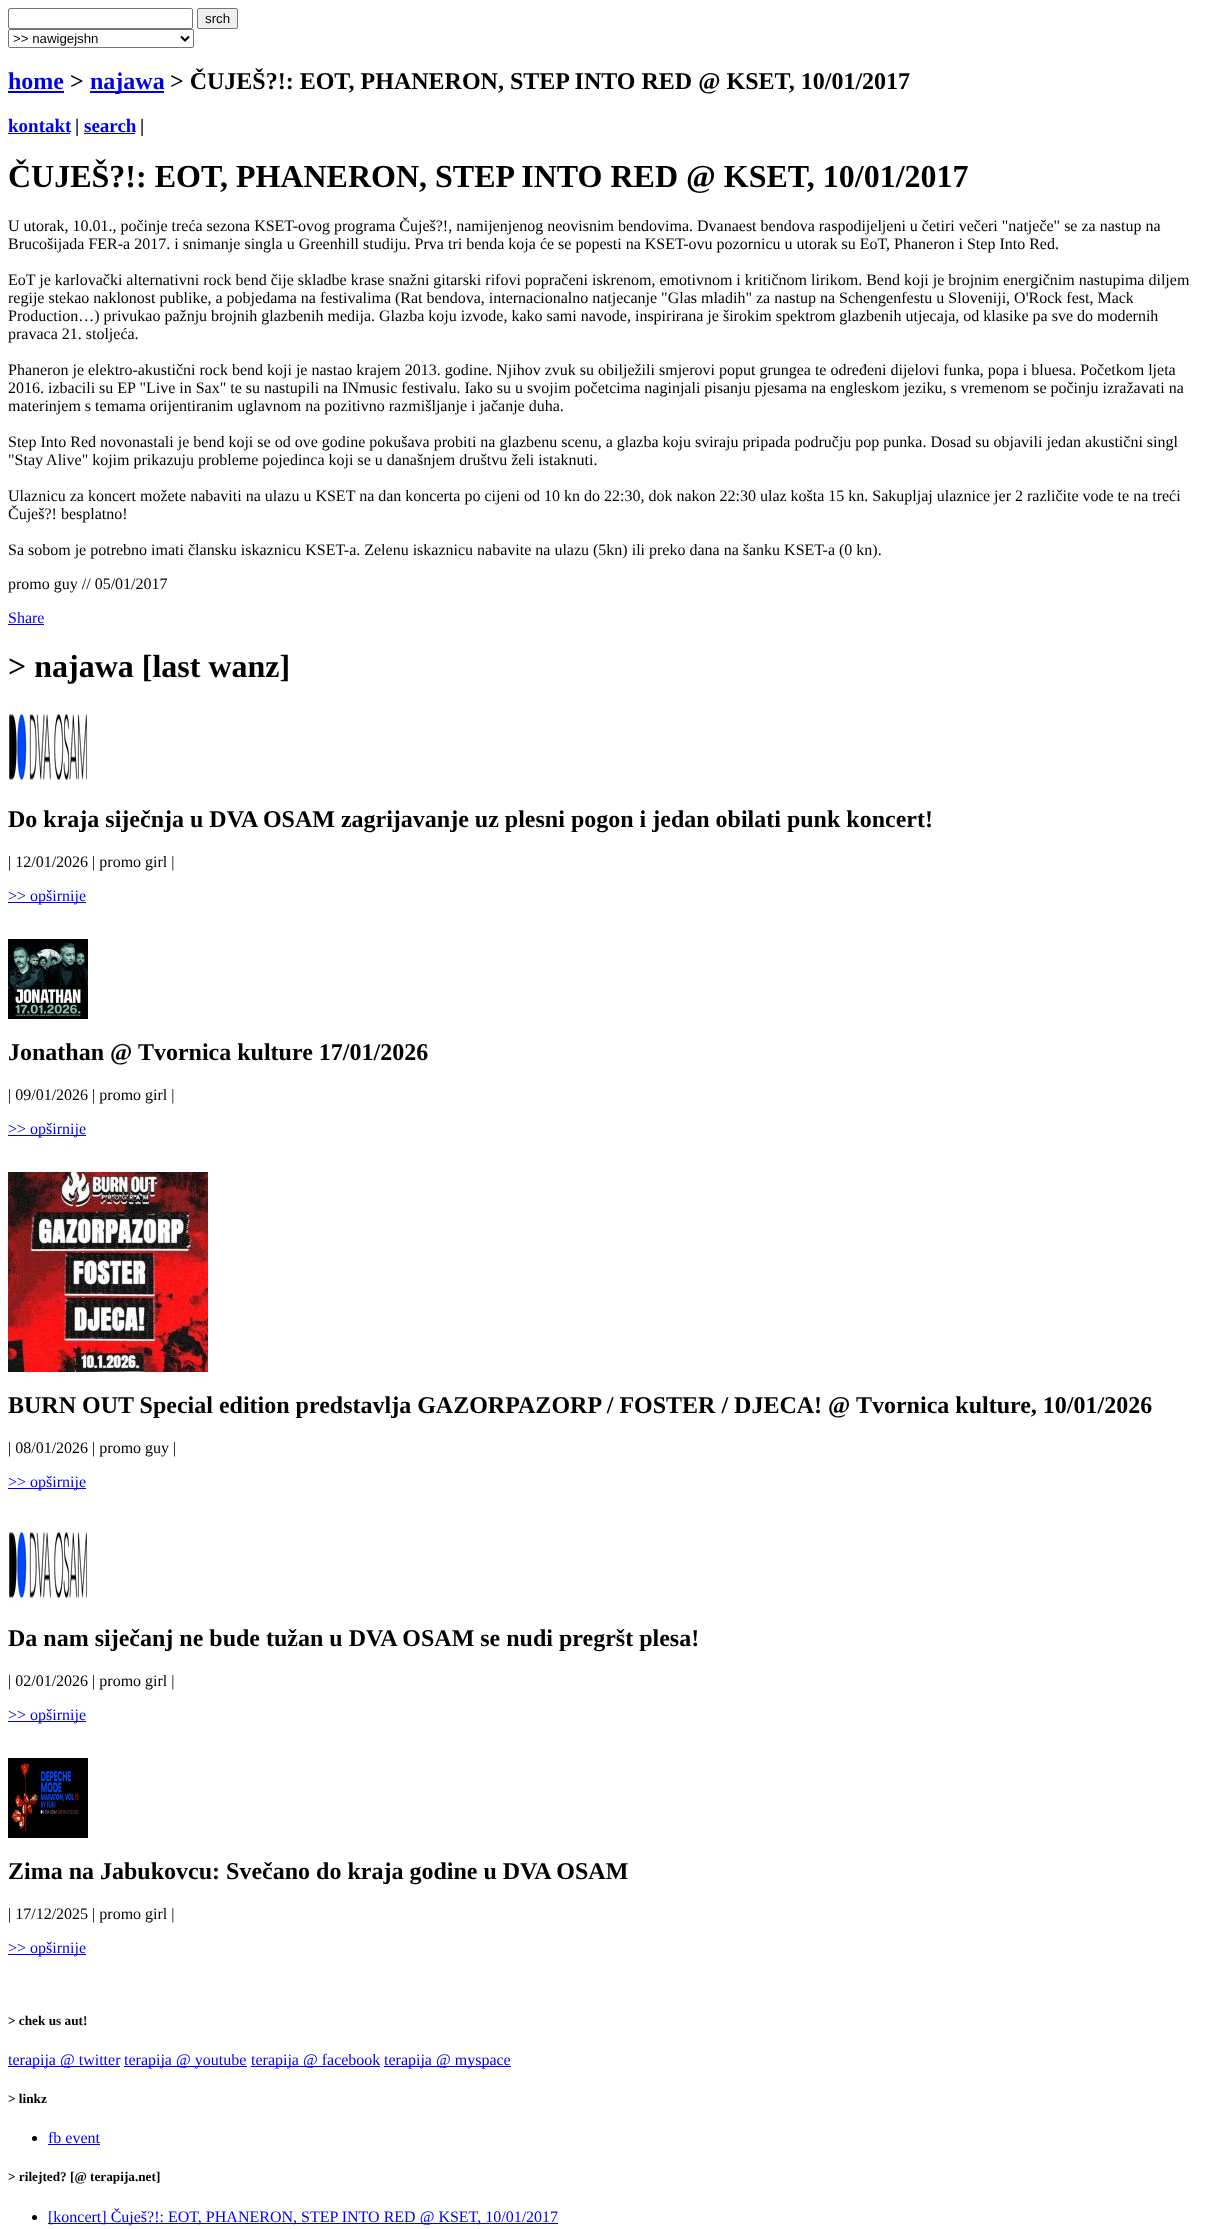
<!DOCTYPE html>
<meta charset="utf-8">
<style>body { margin: 0 } canvas { display: block }</style>
<canvas id="canvas" width="1205" height="2229"></canvas>
<img id="img1" src="img_01.png" hidden>
<img id="img2" src="img_02.png" hidden>
<img id="img3" src="img_03.png" hidden>
<img id="img4" src="img_04.png" hidden>
<script>
window.onload = function () {
	const canvas = document.getElementById("canvas");
	const ctx = canvas.getContext("2d");
	ctx.miterLimit = 4;
	ctx.fontKerning = "normal";
	function txt(s, x, y) {
		ctx.fillText(s, x, y);
	}
	function fill(x, y, w, h) {
		ctx.fillRect(x, y, w, h);
	}
	function img(id, x, y, w, h) {
		ctx.drawImage(document.getElementById(id), x, y, w, h);
	}

	ctx.fillStyle = "#FFFFFF";
	fill(0, 0, 1205, 2229);
	ctx.beginPath();
	ctx.roundRect(8.5, 8.5, 184, 20, 1.5);
	ctx.strokeStyle = "#767676";
	ctx.stroke();
	ctx.fillStyle = "#EFEFEF";
	ctx.beginPath();
	ctx.roundRect(197.5, 8.5, 40, 20, 1.5);
	ctx.fill();
	ctx.stroke();
	ctx.beginPath();
	ctx.roundRect(8.5, 29.5, 185, 18, 1.5);
	ctx.stroke();
	ctx.beginPath();
	ctx.moveTo(181, 36.5);
	ctx.lineTo(185, 40.5);
	ctx.lineTo(189, 36.5);
	ctx.strokeStyle = "#000000";
	ctx.lineWidth = 2;
	ctx.stroke();
	ctx.fillStyle = "#0000EE";
	fill(8, 91, 56, 2);
	fill(90, 91, 74, 2);
	fill(8, 133, 62, 1);
	fill(84, 133, 51, 1);
	fill(8, 624, 36, 1);
	img("img1", 9, 710, 79, 74);
	fill(8, 902, 78, 1);
	img("img2", 8, 939, 80, 80);
	fill(8, 1135, 78, 1);
	img("img3", 8, 1172, 200, 200);
	fill(8, 1488, 78, 1);
	img("img1", 9, 1528, 79, 74);
	fill(8, 1721, 78, 1);
	img("img4", 8, 1758, 80, 80);
	fill(8, 1954, 78, 1);
	fill(8, 2066, 112, 1);
	fill(124, 2066, 123, 1);
	fill(251, 2066, 129, 1);
	fill(384, 2066, 127, 1);
	ctx.fillStyle = "#000000";
	ctx.beginPath();
	ctx.arc(34.5, 2138.5, 2.5, 0, Math.PI * 2);
	ctx.fill();
	ctx.fillStyle = "#0000EE";
	fill(48, 2144, 52, 1);
	ctx.fillStyle = "#000000";
	ctx.beginPath();
	ctx.arc(34.5, 2217.5, 2.5, 0, Math.PI * 2);
	ctx.fill();
	ctx.fillStyle = "#0000EE";
	fill(48, 2223, 510, 1);
	ctx.font = "13.25px Liberation Sans";
	ctx.fillStyle = "#000000";
	txt("srch", 205, 23);
	txt(">> nawigejshn", 13, 43);
	ctx.font = "bold 24px Liberation Serif";
	ctx.fillStyle = "#0000EE";
	txt("home", 8, 89);
	ctx.fillStyle = "#000000";
	txt(">", 70, 89);
	ctx.fillStyle = "#0000EE";
	txt("najawa", 90, 89);
	ctx.fillStyle = "#000000";
	txt("> ČUJEŠ?!: EOT, PHANERON, STEP INTO RED @ KSET, 10/01/2017", 170, 89);
	ctx.font = "bold 19px Liberation Serif";
	ctx.fillStyle = "#0000EE";
	txt("kontakt", 8, 132);
	ctx.fillStyle = "#000000";
	txt("|", 75, 132);
	ctx.fillStyle = "#0000EE";
	txt("search", 84, 132);
	ctx.fillStyle = "#000000";
	txt("|", 140, 132);
	ctx.font = "bold 32px Liberation Serif";
	txt("ČUJEŠ?!: EOT, PHANERON, STEP INTO RED @ KSET, 10/01/2017", 8, 187);
	ctx.font = "16px Liberation Serif";
	txt("U utorak, 10.01., počinje treća sezona KSET-ovog programa Čuješ?!, namijenjenog neovisnim bendovima. Dvanaest bendova raspodijeljeni u četiri večeri \"natječe\" se za nastup na", 8, 231);
	txt("Brucošijada FER-a 2017. i snimanje singla u Greenhill studiju. Prva tri benda koja će se popesti na KSET-ovu pozornicu u utorak su EoT, Phaneron i Step Into Red.", 8, 249);
	txt("EoT je karlovački alternativni rock bend čije skladbe krase snažni gitarski rifovi popračeni iskrenom, emotivnom i kritičnom lirikom. Bend koji je brojnim energičnim nastupima diljem", 8, 285);
	txt("regije stekao naklonost publike, a pobjedama na festivalima (Rat bendova, internacionalno natjecanje \"Glas mladih\" za nastup na Schengenfestu u Sloveniji, O'Rock fest, Mack", 8, 303);
	txt("Production…) privukao pažnju brojnih glazbenih medija. Glazba koju izvode, kako sami navode, inspirirana je širokim spektrom glazbenih utjecaja, od klasike pa sve do modernih", 8, 321);
	txt("pravaca 21. stoljeća.", 8, 339);
	txt("Phaneron je elektro-akustični rock bend koji je nastao krajem 2013. godine. Njihov zvuk su obilježili smjerovi poput grungea te određeni dijelovi funka, popa i bluesa. Početkom ljeta", 8, 375);
	txt("2016. izbacili su EP \"Live in Sax\" te su nastupili na INmusic festivalu. Iako su u svojim početcima naginjali pisanju pjesama na engleskom jeziku, s vremenom se počinju izražavati na", 8, 393);
	txt("materinjem s temama orijentiranim uglavnom na pozitivno razmišljanje i jačanje duha.", 8, 411);
	txt("Step Into Red novonastali je bend koji se od ove godine pokušava probiti na glazbenu scenu, a glazba koju sviraju pripada području pop punka. Dosad su objavili jedan akustični singl", 8, 447);
	txt("\"Stay Alive\" kojim prikazuju probleme pojedinca koji se u današnjem društvu želi istaknuti.", 8, 465);
	txt("Ulaznicu za koncert možete nabaviti na ulazu u KSET na dan koncerta po cijeni od 10 kn do 22:30, dok nakon 22:30 ulaz košta 15 kn. Sakupljaj ulaznice jer 2 različite vode te na treći", 8, 501);
	txt("Čuješ?! besplatno!", 8, 519);
	txt("Sa sobom je potrebno imati člansku iskaznicu KSET-a. Zelenu iskaznicu nabavite na ulazu (5kn) ili preko dana na šanku KSET-a (0 kn).", 8, 555);
	txt("promo guy // 05/01/2017", 8, 589);
	ctx.fillStyle = "#0000EE";
	txt("Share", 8, 623);
	ctx.font = "bold 32px Liberation Serif";
	ctx.fillStyle = "#000000";
	txt("> najawa [last wanz]", 8, 677);
	ctx.font = "bold 24px Liberation Serif";
	txt("Do kraja siječnja u DVA OSAM zagrijavanje uz plesni pogon i jedan obilati punk koncert!", 8, 827);
	ctx.font = "16px Liberation Serif";
	txt("| 12/01/2026 | promo girl |", 8, 867);
	ctx.fillStyle = "#0000EE";
	txt(">> opširnije", 8, 901);
	ctx.font = "bold 24px Liberation Serif";
	ctx.fillStyle = "#000000";
	txt("Jonathan @ Tvornica kulture 17/01/2026", 8, 1060);
	ctx.font = "16px Liberation Serif";
	txt("| 09/01/2026 | promo girl |", 8, 1100);
	ctx.fillStyle = "#0000EE";
	txt(">> opširnije", 8, 1134);
	ctx.font = "bold 24px Liberation Serif";
	ctx.fillStyle = "#000000";
	txt("BURN OUT Special edition predstavlja GAZORPAZORP / FOSTER / DJECA! @ Tvornica kulture, 10/01/2026", 8, 1413);
	ctx.font = "16px Liberation Serif";
	txt("| 08/01/2026 | promo guy |", 8, 1453);
	ctx.fillStyle = "#0000EE";
	txt(">> opširnije", 8, 1487);
	ctx.font = "bold 24px Liberation Serif";
	ctx.fillStyle = "#000000";
	txt("Da nam siječanj ne bude tužan u DVA OSAM se nudi pregršt plesa!", 8, 1646);
	ctx.font = "16px Liberation Serif";
	txt("| 02/01/2026 | promo girl |", 8, 1686);
	ctx.fillStyle = "#0000EE";
	txt(">> opširnije", 8, 1720);
	ctx.font = "bold 24px Liberation Serif";
	ctx.fillStyle = "#000000";
	txt("Zima na Jabukovcu: Svečano do kraja godine u DVA OSAM", 8, 1879);
	ctx.font = "16px Liberation Serif";
	txt("| 17/12/2025 | promo girl |", 8, 1919);
	ctx.fillStyle = "#0000EE";
	txt(">> opširnije", 8, 1953);
	ctx.font = "bold 13.25px Liberation Serif";
	ctx.fillStyle = "#000000";
	txt("> chek us aut!", 8, 2025);
	ctx.font = "16px Liberation Serif";
	ctx.fillStyle = "#0000EE";
	txt("terapija @ twitter", 8, 2065);
	txt("terapija @ youtube", 124, 2065);
	txt("terapija @ facebook", 251, 2065);
	txt("terapija @ myspace", 384, 2065);
	ctx.font = "bold 13.25px Liberation Serif";
	ctx.fillStyle = "#000000";
	txt("> linkz", 8, 2103);
	ctx.font = "16px Liberation Serif";
	ctx.fillStyle = "#0000EE";
	txt("fb event", 48, 2143);
	ctx.font = "bold 13.25px Liberation Serif";
	ctx.fillStyle = "#000000";
	txt("> rilejted? [@ terapija.net]", 8, 2181);
	ctx.font = "16px Liberation Serif";
	ctx.fillStyle = "#0000EE";
	txt("[koncert] Čuješ?!: EOT, PHANERON, STEP INTO RED @ KSET, 10/01/2017", 48, 2222);
};
</script>
